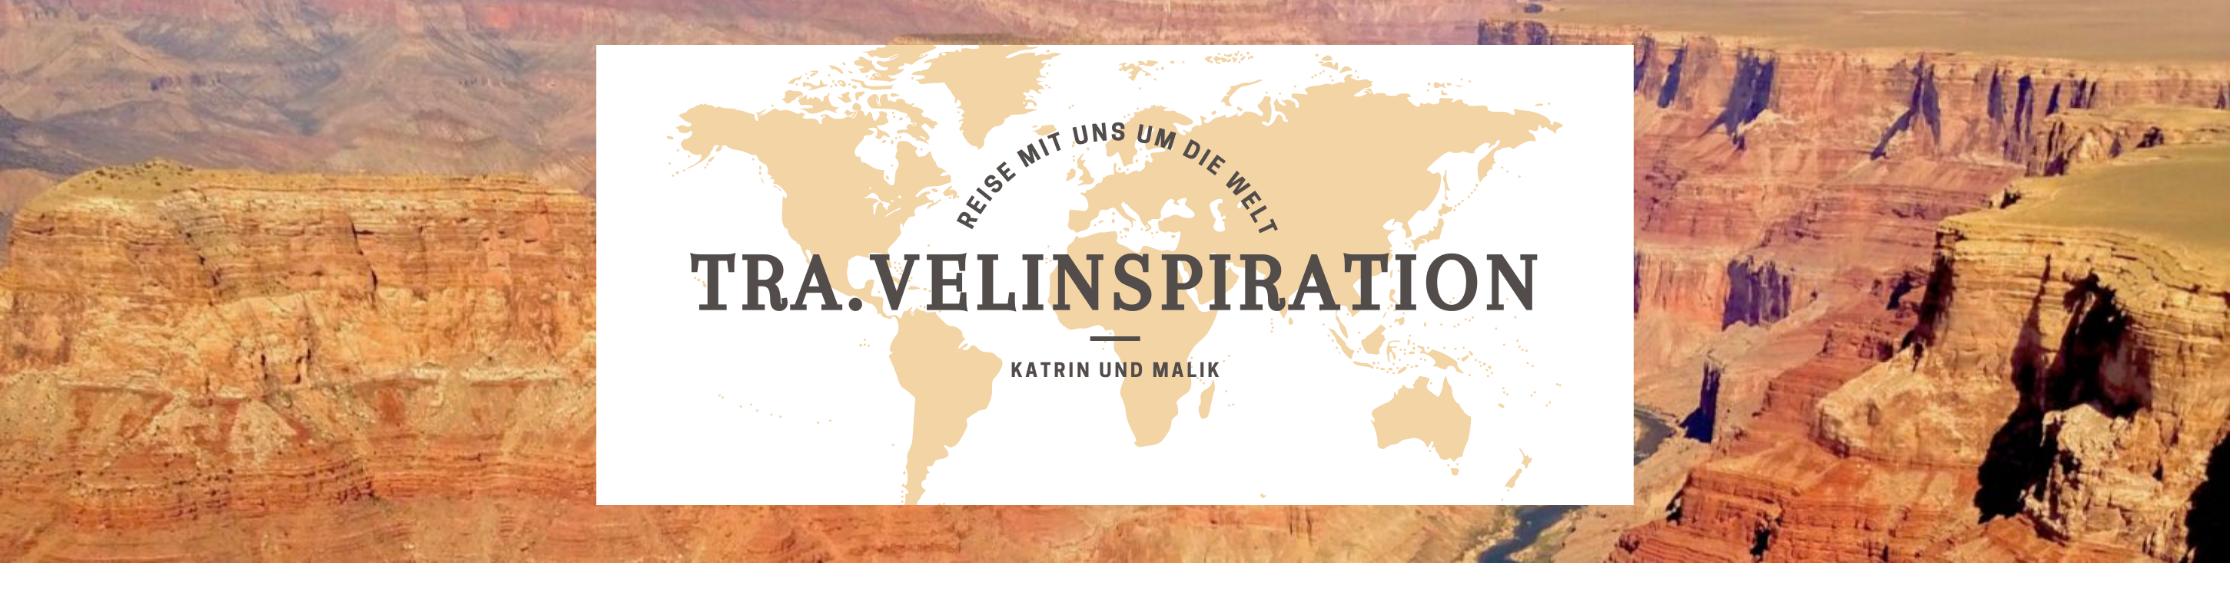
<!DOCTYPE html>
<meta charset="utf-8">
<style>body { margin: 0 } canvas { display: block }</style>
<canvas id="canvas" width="2230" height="590"></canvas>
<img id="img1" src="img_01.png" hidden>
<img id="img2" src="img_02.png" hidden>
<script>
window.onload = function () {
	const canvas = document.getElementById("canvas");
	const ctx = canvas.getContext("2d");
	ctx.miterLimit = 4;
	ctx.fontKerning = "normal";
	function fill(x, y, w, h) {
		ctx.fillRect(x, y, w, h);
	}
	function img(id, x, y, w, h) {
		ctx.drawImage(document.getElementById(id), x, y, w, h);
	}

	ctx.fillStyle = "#FFFFFF";
	fill(0, 0, 2230, 590);
	img("img1", 0, 0, 2230, 563);
	img("img2", 596, 45, 1038, 460);
};
</script>
